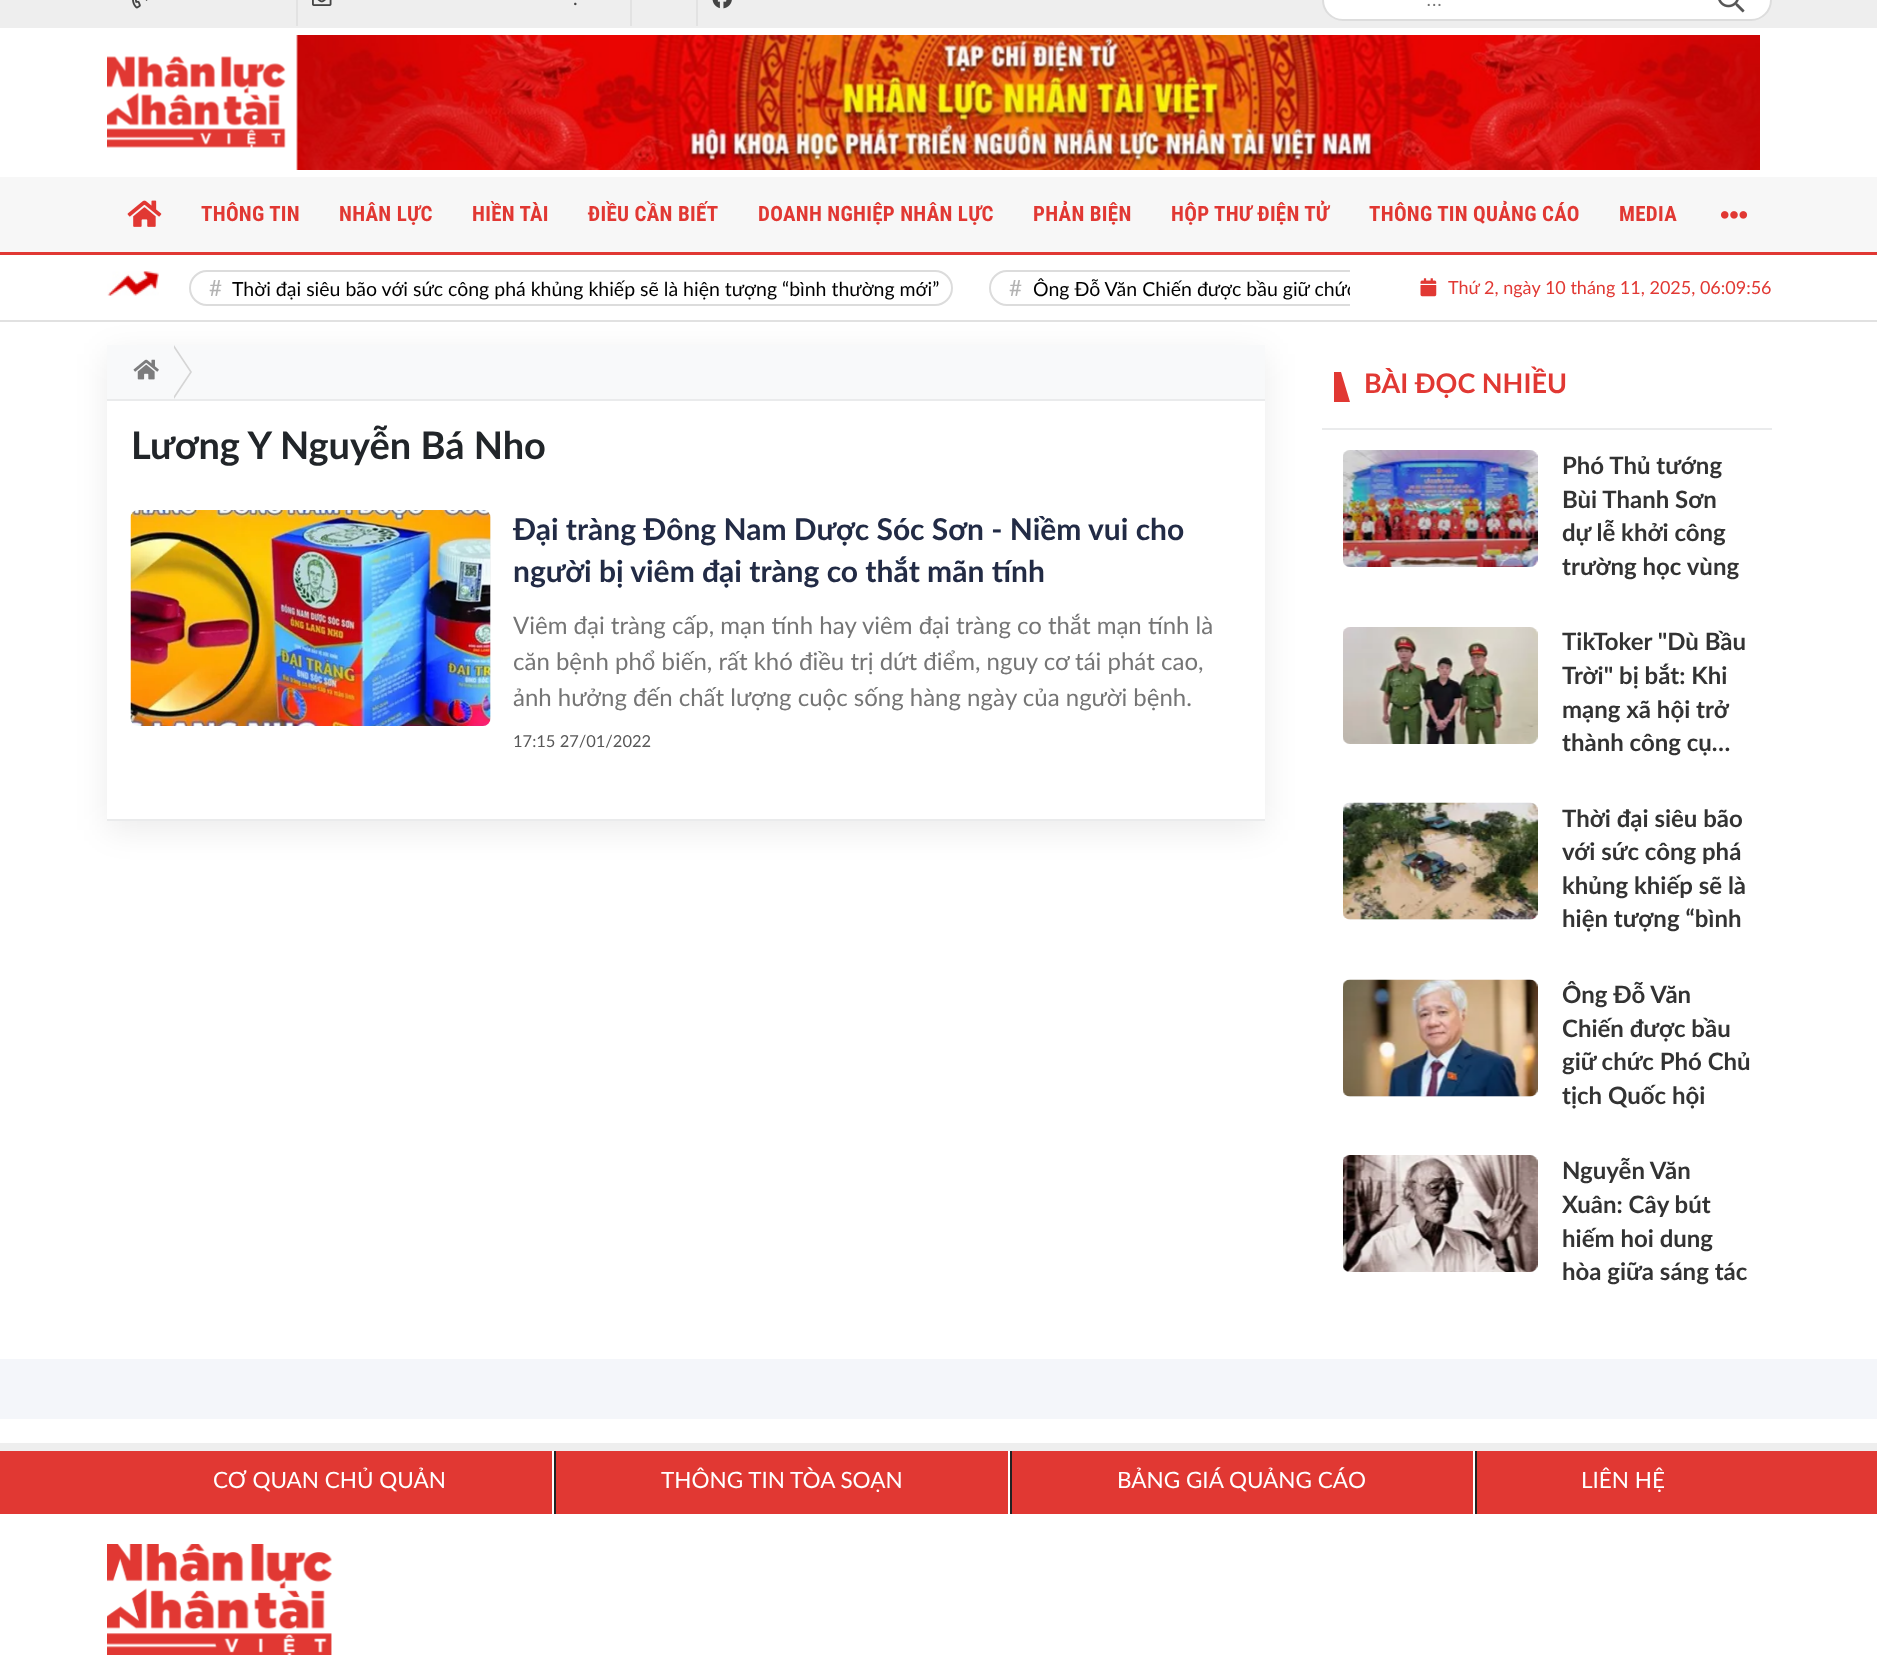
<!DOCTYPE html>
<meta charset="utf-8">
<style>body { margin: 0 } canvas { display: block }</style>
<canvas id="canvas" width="1877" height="1655"></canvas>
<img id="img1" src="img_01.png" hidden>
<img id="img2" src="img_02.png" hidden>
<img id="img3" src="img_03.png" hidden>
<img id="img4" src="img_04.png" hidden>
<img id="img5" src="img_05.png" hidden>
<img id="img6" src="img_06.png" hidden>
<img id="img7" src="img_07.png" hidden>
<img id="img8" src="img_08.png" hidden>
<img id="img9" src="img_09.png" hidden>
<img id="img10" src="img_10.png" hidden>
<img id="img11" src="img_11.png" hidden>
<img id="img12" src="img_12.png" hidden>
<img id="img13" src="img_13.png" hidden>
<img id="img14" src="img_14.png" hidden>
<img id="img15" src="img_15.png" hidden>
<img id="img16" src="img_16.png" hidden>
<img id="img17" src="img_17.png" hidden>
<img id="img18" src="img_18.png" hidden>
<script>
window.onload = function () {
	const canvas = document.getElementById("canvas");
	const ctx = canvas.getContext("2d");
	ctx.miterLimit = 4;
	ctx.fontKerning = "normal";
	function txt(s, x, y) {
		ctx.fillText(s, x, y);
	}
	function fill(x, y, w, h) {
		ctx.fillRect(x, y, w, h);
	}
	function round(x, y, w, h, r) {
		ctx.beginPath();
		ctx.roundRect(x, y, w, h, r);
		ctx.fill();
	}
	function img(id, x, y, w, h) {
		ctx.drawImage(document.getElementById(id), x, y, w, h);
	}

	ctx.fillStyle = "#FFFFFF";
	fill(0, 0, 1877, 1655);
	ctx.fillStyle = "#EEEEEE";
	fill(0, 0, 1877, 28);
	ctx.fillStyle = "#E2E2E2";
	fill(296, 0, 2, 26);
	img("img1", 132, 0, 16, 9);
	fill(630, 0, 2, 26);
	img("img2", 312, 0, 20, 6);
	fill(696, 0, 2, 26);
	img("img3", 712, 0, 20, 9);
	ctx.fillStyle = "#FFFFFF";
	ctx.beginPath();
	ctx.roundRect(1323, -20, 448, 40, 20);
	ctx.fill();
	ctx.strokeStyle = "#DDDDDD";
	ctx.lineWidth = 2;
	ctx.stroke();
	img("img4", 1718, 0, 27, 13);
	img("img5", 107, 56, 179, 92);
	img("img6", 296, 35, 1464, 135);
	ctx.fillStyle = "#F7F7F7";
	fill(0, 177, 1877, 75);
	ctx.fillStyle = "#E13833";
	fill(0, 252, 1877, 3);
	img("img7", 127, 200, 35, 27);
	img("img8", 1720, 211, 28, 8);
	ctx.fillStyle = "rgba(0, 0, 0, 0.08)";
	ctx.filter = "blur(16.5px)";
	ctx.beginPath();
	ctx.rect(107, 354, 1158, 476);
	ctx.fill();
	ctx.filter = "none";
	ctx.fillStyle = "#E1E1E1";
	fill(0, 320, 1877, 2);
	img("img9", 107, 271, 52, 25);
	ctx.beginPath();
	ctx.roundRect(190, 271, 762, 34, 17);
	ctx.strokeStyle = "#DCDCDC";
	ctx.stroke();
	ctx.save();
	ctx.beginPath();
	ctx.rect(174, 270, 1176, 36);
	ctx.clip();
	ctx.beginPath();
	ctx.roundRect(990, 271, 577, 34, 17);
	ctx.stroke();
	ctx.restore();
	img("img10", 1420, 278, 17, 19);
	ctx.fillStyle = "#FFFFFF";
	fill(107, 401, 1158, 418);
	ctx.fillStyle = "#F8F9FA";
	fill(107, 345, 1158, 54);
	ctx.fillStyle = "#EAEBEC";
	fill(107, 399, 1158, 2);
	img("img11", 133, 359, 26, 21);
	ctx.fillStyle = "#D5D5D5";
	ctx.beginPath();
	ctx.moveTo(174, 399);
	ctx.lineTo(174, 345);
	ctx.lineTo(192, 372);
	ctx.closePath();
	ctx.fill();
	ctx.fillStyle = "#F8F9FA";
	ctx.beginPath();
	ctx.moveTo(172, 399);
	ctx.lineTo(172, 345);
	ctx.lineTo(190, 372);
	ctx.closePath();
	ctx.fill();
	ctx.fillStyle = "#EAEBEC";
	fill(107, 819, 1158, 2);
	ctx.fillStyle = "#F5F4F4";
	round(131, 510, 360, 216, 8);
	img("img12", 130, 510, 361, 216);
	ctx.fillStyle = "#EAEBEC";
	fill(1322, 428, 450, 2);
	ctx.fillStyle = "#E13833";
	fill(1334, 372, 7, 30);
	ctx.beginPath();
	ctx.moveTo(1350, 402);
	ctx.lineTo(1341, 402);
	ctx.lineTo(1341, 372);
	ctx.closePath();
	ctx.fill();
	ctx.fillStyle = "#F5F4F4";
	round(1343, 450, 195, 117, 8);
	img("img13", 1343, 450, 195, 117);
	round(1343, 627, 195, 117, 8);
	img("img14", 1343, 627, 195, 117);
	round(1343, 803, 195, 117, 8);
	img("img15", 1343, 802, 195, 118);
	round(1343, 980, 195, 117, 8);
	img("img16", 1343, 979, 195, 118);
	round(1343, 1155, 195, 117, 8);
	img("img17", 1343, 1155, 195, 117);
	ctx.fillStyle = "#F4F6FA";
	fill(0, 1359, 1877, 60);
	ctx.fillStyle = "#EEEEEE";
	fill(0, 1443, 1877, 8);
	ctx.fillStyle = "#E13833";
	fill(0, 1451, 1877, 63);
	ctx.fillStyle = "#FFFFFF";
	fill(552, 1451, 2, 63);
	fill(1008, 1451, 2, 63);
	ctx.fillStyle = "#222222";
	fill(554, 1451, 2, 63);
	ctx.fillStyle = "#FFFFFF";
	fill(1473, 1451, 2, 63);
	ctx.fillStyle = "#222222";
	fill(1010, 1451, 2, 63);
	fill(1475, 1451, 2, 63);
	img("img18", 107, 1544, 225, 111);
	ctx.letterSpacing = "0.3px";
	ctx.font = "19.5px Lato";
	ctx.fillStyle = "#444444";
	txt(".", 573, 5);
	ctx.letterSpacing = "0px";
	ctx.font = "19.5px Liberation Sans";
	ctx.fillStyle = "#757575";
	txt("...", 1426, 6);
	ctx.letterSpacing = "0.3px";
	ctx.font = "bold 21px Roboto Condensed";
	ctx.fillStyle = "#E13833";
	txt("THÔNG TIN", 201, 221);
	txt("NHÂN LỰC", 339, 221);
	txt("HIỀN TÀI", 472, 221);
	txt("ĐIỀU CẦN BIẾT", 588, 221);
	txt("DOANH NGHIỆP NHÂN LỰC", 758, 221);
	txt("PHẢN BIỆN", 1033, 221);
	txt("HỘP THƯ ĐIỆN TỬ", 1171, 221);
	txt("THÔNG TIN QUẢNG CÁO", 1369, 221);
	txt("MEDIA", 1619, 221);
	ctx.letterSpacing = "0px";
	ctx.font = "22.5px Lato";
	ctx.fillStyle = "#B3B3B3";
	txt("#", 209, 296);
	ctx.font = "19.5px Lato";
	ctx.fillStyle = "#000000";
	txt("Thời đại siêu bão với sức công phá khủng khiếp sẽ là hiện tượng “bình thường mới”", 232, 296);
	ctx.font = "22.5px Lato";
	ctx.fillStyle = "#B3B3B3";
	txt("#", 1009, 296);
	ctx.save();
	ctx.beginPath();
	ctx.rect(174, 270, 1176, 36);
	ctx.clip();
	ctx.font = "19.5px Lato";
	ctx.fillStyle = "#000000";
	txt("Ông Đỗ Văn Chiến được bầu giữ chức", 1033, 296);
	ctx.restore();
	ctx.font = "18px Lato";
	ctx.fillStyle = "#E13833";
	txt("Thứ 2, ngày 10 tháng 11, 2025, 06:09:56", 1448, 294);
	ctx.font = "bold 38px Lato";
	ctx.fillStyle = "#212529";
	txt("Lương Y Nguyễn Bá Nho", 131, 459);
	ctx.font = "bold 30px Lato";
	ctx.fillStyle = "#222B45";
	txt("Đại tràng Đông Nam Dược Sóc Sơn - Niềm vui cho", 513, 540);
	txt("người bị viêm đại tràng co thắt mãn tính", 513, 582);
	ctx.font = "24px Lato";
	ctx.fillStyle = "#757575";
	txt("Viêm đại tràng cấp, mạn tính hay viêm đại tràng co thắt mạn tính là", 513, 634);
	txt("căn bệnh phổ biến, rất khó điều trị dứt điểm, nguy cơ tái phát cao,", 513, 670);
	txt("ảnh hưởng đến chất lượng cuộc sống hàng ngày của người bệnh.", 513, 706);
	ctx.font = "16.5px Lato";
	ctx.fillStyle = "#575757";
	txt("17:15 27/01/2022", 513, 747);
	ctx.font = "bold 27px Lato";
	ctx.fillStyle = "#E13833";
	txt("BÀI ĐỌC NHIỀU", 1364, 393);
	ctx.font = "bold 24px Lato";
	ctx.fillStyle = "#333333";
	txt("Phó Thủ tướng", 1562, 474);
	txt("Bùi Thanh Sơn", 1562, 508);
	txt("dự lễ khởi công", 1562, 541);
	txt("trường học vùng", 1562, 575);
	txt("TikToker \"Dù Bầu", 1562, 650);
	txt("Trời\" bị bắt: Khi", 1562, 684);
	txt("mạng xã hội trở", 1562, 718);
	txt("thành công cụ…", 1562, 751);
	txt("Thời đại siêu bão", 1562, 827);
	txt("với sức công phá", 1562, 860);
	txt("khủng khiếp sẽ là", 1562, 894);
	txt("hiện tượng “bình", 1562, 927);
	txt("Ông Đỗ Văn", 1562, 1003);
	txt("Chiến được bầu", 1562, 1037);
	txt("giữ chức Phó Chủ", 1562, 1070);
	txt("tịch Quốc hội", 1562, 1104);
	txt("Nguyễn Văn", 1562, 1179);
	txt("Xuân: Cây bút", 1562, 1213);
	txt("hiếm hoi dung", 1562, 1247);
	txt("hòa giữa sáng tác", 1562, 1280);
	ctx.font = "22.5px Lato";
	ctx.fillStyle = "#FFFFFF";
	txt("CƠ QUAN CHỦ QUẢN", 213, 1488);
	txt("THÔNG TIN TÒA SOẠN", 661, 1488);
	txt("BẢNG GIÁ QUẢNG CÁO", 1117, 1488);
	txt("LIÊN HỆ", 1581, 1488);
};
</script>
